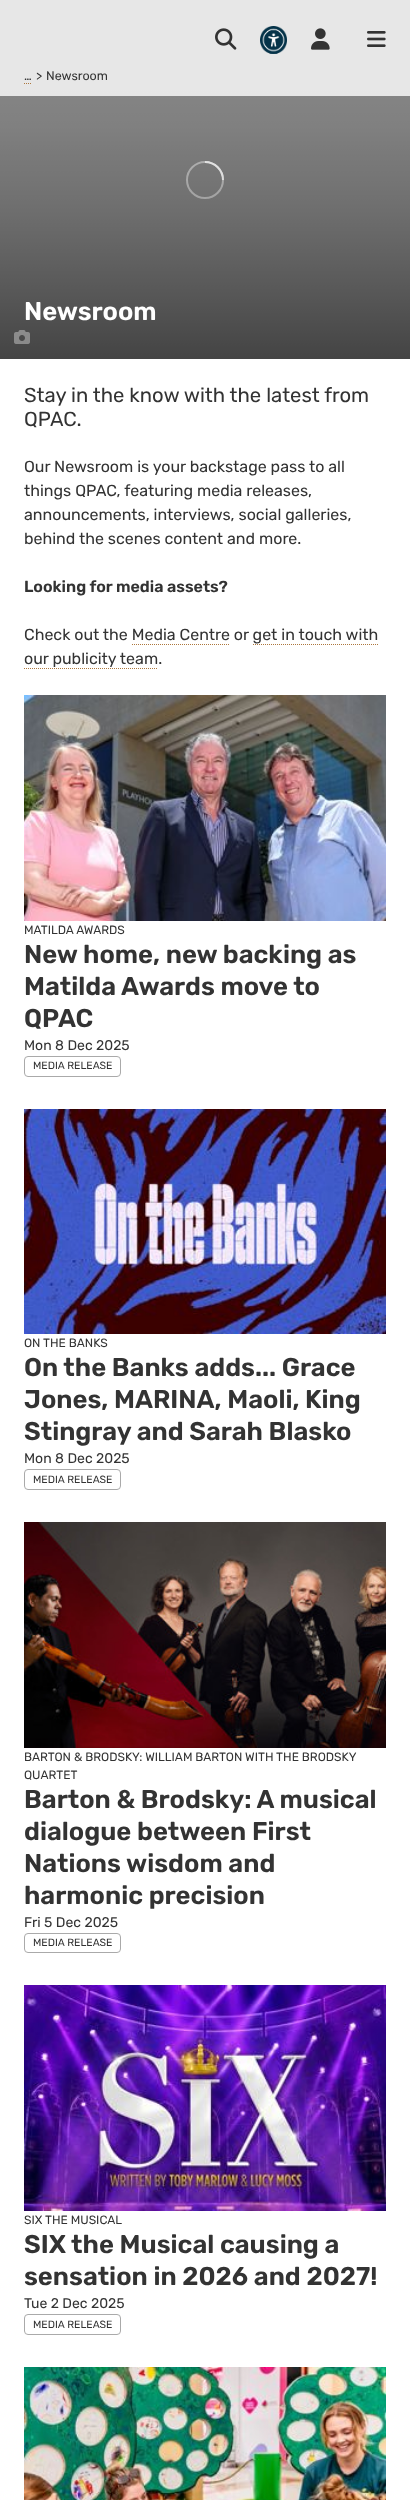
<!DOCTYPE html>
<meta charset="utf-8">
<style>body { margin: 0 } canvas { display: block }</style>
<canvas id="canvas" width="410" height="2500"></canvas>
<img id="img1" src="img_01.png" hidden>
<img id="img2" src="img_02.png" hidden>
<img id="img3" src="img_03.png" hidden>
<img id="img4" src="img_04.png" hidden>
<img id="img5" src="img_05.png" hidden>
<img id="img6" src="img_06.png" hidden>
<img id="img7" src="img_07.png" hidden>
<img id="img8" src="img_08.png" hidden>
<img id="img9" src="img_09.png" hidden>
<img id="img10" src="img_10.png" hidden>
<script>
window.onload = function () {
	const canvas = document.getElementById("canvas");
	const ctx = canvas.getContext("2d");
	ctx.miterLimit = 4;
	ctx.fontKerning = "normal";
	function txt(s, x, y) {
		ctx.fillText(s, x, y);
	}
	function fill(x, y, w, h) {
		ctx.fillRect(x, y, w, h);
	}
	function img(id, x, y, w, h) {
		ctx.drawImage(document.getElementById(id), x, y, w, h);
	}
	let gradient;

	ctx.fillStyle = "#FFFFFF";
	fill(0, 0, 410, 2500);
	ctx.fillStyle = "#888888";
	fill(0, 0, 410, 359);
	ctx.beginPath();
	ctx.arc(205, 180, 18, 0, Math.PI * 2);
	ctx.strokeStyle = "#C4C4C4";
	ctx.lineWidth = 2;
	ctx.stroke();
	ctx.beginPath();
	ctx.moveTo(223, 180);
	ctx.bezierCurveTo(223, 170, 215, 162, 205, 162);
	ctx.strokeStyle = "#FFFFFF";
	ctx.stroke();
	gradient = ctx.createLinearGradient(205, 359, 205, 39);
	gradient.addColorStop(0, "rgba(0, 0, 0, 0.5)");
	gradient.addColorStop(0.19, "rgba(0, 0, 0, 0.37)");
	gradient.addColorStop(0.34, "rgba(0, 0, 0, 0.27)");
	gradient.addColorStop(0.47, "rgba(0, 0, 0, 0.19)");
	gradient.addColorStop(0.56, "rgba(0, 0, 0, 0.14)");
	gradient.addColorStop(0.65, "rgba(0, 0, 0, 0.1)");
	gradient.addColorStop(0.73, "rgba(0, 0, 0, 0.06)");
	gradient.addColorStop(0.8, "rgba(0, 0, 0, 0.04)");
	gradient.addColorStop(0.86, "rgba(0, 0, 0, 0.02)");
	gradient.addColorStop(0.91, "rgba(0, 0, 0, 0.01)");
	gradient.addColorStop(0.95, "rgba(0, 0, 0, 0)");
	gradient.addColorStop(0.98, "rgba(0, 0, 0, 0)");
	gradient.addColorStop(1, "rgba(0, 0, 0, 0)");
	ctx.fillStyle = gradient;
	fill(0, 85, 410, 274);
	ctx.fillStyle = "rgba(255, 255, 255, 0.8)";
	fill(0, 0, 410, 96);
	img("img1", 215, 28, 22, 22);
	img("img2", 260, 26, 27, 28);
	img("img3", 311, 28, 19, 22);
	img("img4", 367, 31, 19, 16);
	ctx.beginPath();
	ctx.moveTo(24, 83.5);
	ctx.lineTo(32, 83.5);
	ctx.strokeStyle = "#AD773D";
	ctx.lineWidth = 1;
	ctx.setLineDash([1, 1]);
	ctx.stroke();
	img("img5", 14, 330, 16, 14);
	ctx.beginPath();
	ctx.moveTo(132, 644.5);
	ctx.lineTo(230, 644.5);
	ctx.stroke();
	ctx.beginPath();
	ctx.moveTo(253, 644.5);
	ctx.lineTo(379, 644.5);
	ctx.stroke();
	ctx.beginPath();
	ctx.moveTo(24, 668.5);
	ctx.lineTo(158, 668.5);
	ctx.stroke();
	img("img6", 24, 695, 362, 226);
	ctx.beginPath();
	ctx.roundRect(24.5, 1056.5, 96, 20, 3.5);
	ctx.strokeStyle = "#AAAAAA";
	ctx.setLineDash([]);
	ctx.stroke();
	img("img7", 24, 1109, 362, 225);
	ctx.beginPath();
	ctx.roundRect(24.5, 1469.5, 96, 20, 3.5);
	ctx.stroke();
	img("img8", 24, 1522, 362, 226);
	ctx.beginPath();
	ctx.roundRect(24.5, 1933.5, 96, 19, 3.5);
	ctx.stroke();
	img("img9", 24, 1985, 362, 226);
	ctx.beginPath();
	ctx.roundRect(24.5, 2314.5, 96, 20, 3.5);
	ctx.stroke();
	img("img10", 24, 2367, 362, 133);
	ctx.font = "12.5px Rubik";
	ctx.fillStyle = "#333333";
	txt("…", 24, 80);
	txt(">", 36, 80);
	txt("Newsroom", 46, 80);
	ctx.font = "600 25.6px Rubik";
	ctx.fillStyle = "#FFFFFF";
	txt("Newsroom", 24, 320);
	ctx.font = "20.25px Rubik";
	ctx.fillStyle = "#333333";
	txt("Stay in the know with the latest from", 24, 402);
	txt("QPAC.", 24, 426);
	ctx.font = "16px Rubik";
	txt("Our Newsroom is your backstage pass to all", 24, 472);
	txt("things QPAC, featuring media releases,", 24, 496);
	txt("announcements, interviews, social galleries,", 24, 520);
	txt("behind the scenes content and more.", 24, 544);
	ctx.font = "600 16px Rubik";
	txt("Looking for media assets?", 24, 592);
	ctx.font = "16px Rubik";
	txt("Check out the Media Centre or get in touch with", 24, 640);
	txt("our publicity team.", 24, 664);
	ctx.font = "12px Rubik";
	txt("MATILDA AWARDS", 24, 934);
	ctx.font = "600 25.6px Rubik";
	txt("New home, new backing as", 24, 963);
	txt("Matilda Awards move to", 24, 995);
	txt("QPAC", 24, 1027);
	ctx.font = "14px Rubik";
	txt("Mon 8 Dec 2025", 24, 1050);
	ctx.font = "10.5px Rubik";
	txt("MEDIA RELEASE", 33, 1069);
	ctx.font = "12px Rubik";
	txt("ON THE BANKS", 24, 1347);
	ctx.font = "600 25.6px Rubik";
	txt("On the Banks adds... Grace", 24, 1376);
	txt("Jones, MARINA, Maoli, King", 24, 1408);
	txt("Stingray and Sarah Blasko", 24, 1440);
	ctx.font = "14px Rubik";
	txt("Mon 8 Dec 2025", 24, 1463);
	ctx.font = "10.5px Rubik";
	txt("MEDIA RELEASE", 33, 1483);
	ctx.font = "12px Rubik";
	txt("BARTON & BRODSKY: WILLIAM BARTON WITH THE BRODSKY", 24, 1761);
	txt("QUARTET", 24, 1779);
	ctx.font = "600 25.6px Rubik";
	txt("Barton & Brodsky: A musical", 24, 1808);
	txt("dialogue between First", 24, 1840);
	txt("Nations wisdom and", 24, 1872);
	txt("harmonic precision", 24, 1904);
	ctx.font = "14px Rubik";
	txt("Fri 5 Dec 2025", 24, 1927);
	ctx.font = "10.5px Rubik";
	txt("MEDIA RELEASE", 33, 1946);
	ctx.font = "12px Rubik";
	txt("SIX THE MUSICAL", 24, 2224);
	ctx.font = "600 25.6px Rubik";
	txt("SIX the Musical causing a", 24, 2253);
	txt("sensation in 2026 and 2027!", 24, 2285);
	ctx.font = "14px Rubik";
	txt("Tue 2 Dec 2025", 24, 2308);
	ctx.font = "10.5px Rubik";
	txt("MEDIA RELEASE", 33, 2328);
};
</script>
